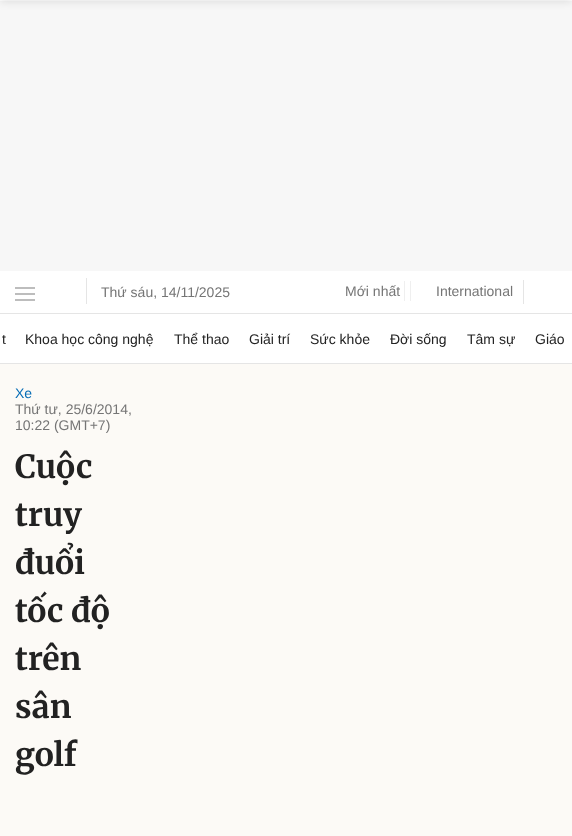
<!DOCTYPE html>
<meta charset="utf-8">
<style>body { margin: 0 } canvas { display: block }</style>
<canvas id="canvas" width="572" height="836"></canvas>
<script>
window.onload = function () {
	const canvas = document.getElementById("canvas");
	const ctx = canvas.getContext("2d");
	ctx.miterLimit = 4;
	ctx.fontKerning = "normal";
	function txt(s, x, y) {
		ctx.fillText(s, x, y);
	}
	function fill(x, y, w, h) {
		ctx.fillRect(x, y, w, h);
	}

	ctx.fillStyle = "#FFFFFF";
	fill(0, 0, 572, 836);
	ctx.fillStyle = "#F7F7F7";
	fill(0, 1, 572, 270);
	ctx.fillStyle = "#E5E5E5";
	fill(0, 313, 572, 1);
	ctx.fillStyle = "#BDBDBD";
	fill(15, 287, 20, 2);
	fill(15, 293, 20, 2);
	fill(15, 299, 20, 2);
	ctx.fillStyle = "#E5E5E5";
	fill(86, 278, 1, 26);
	ctx.fillStyle = "#EFEFEF";
	fill(410, 281, 1, 20);
	fill(404, 281, 1, 20);
	ctx.fillStyle = "#E5E5E5";
	fill(523, 280, 1, 24);
	fill(0, 363, 572, 1);
	ctx.fillStyle = "#FCFAF6";
	fill(0, 364, 572, 472);
	ctx.fillStyle = "rgba(0, 0, 0, 0.1)";
	ctx.filter = "blur(4px)";
	ctx.beginPath();
	ctx.rect(0, -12, 572, 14);
	ctx.fill();
	ctx.filter = "none";
	ctx.font = "14px Liberation Sans";
	ctx.fillStyle = "#757575";
	txt("Thứ sáu, 14/11/2025", 101, 297);
	txt("Mới nhất", 345, 296);
	txt("International", 436, 296);
	ctx.fillStyle = "#222222";
	txt("t", 2, 344);
	txt("Khoa học công nghệ", 25, 344);
	txt("Thể thao", 174, 344);
	txt("Giải trí", 249, 344);
	txt("Sức khỏe", 310, 344);
	txt("Đời sống", 390, 344);
	txt("Tâm sự", 467, 344);
	txt("Giáo", 535, 344);
	ctx.fillStyle = "#076DB6";
	txt("Xe", 15, 398);
	ctx.fillStyle = "#757575";
	txt("Thứ tư, 25/6/2014,", 15, 414);
	txt("10:22 (GMT+7)", 15, 430);
	ctx.font = "bold 32px Merriweather";
	ctx.fillStyle = "#222222";
	txt("Cuộc", 15, 478);
	txt("truy", 15, 526);
	txt("đuổi", 15, 574);
	txt("tốc độ", 15, 622);
	txt("trên", 15, 670);
	txt("sân", 15, 718);
	txt("golf", 15, 766);
};
</script>
